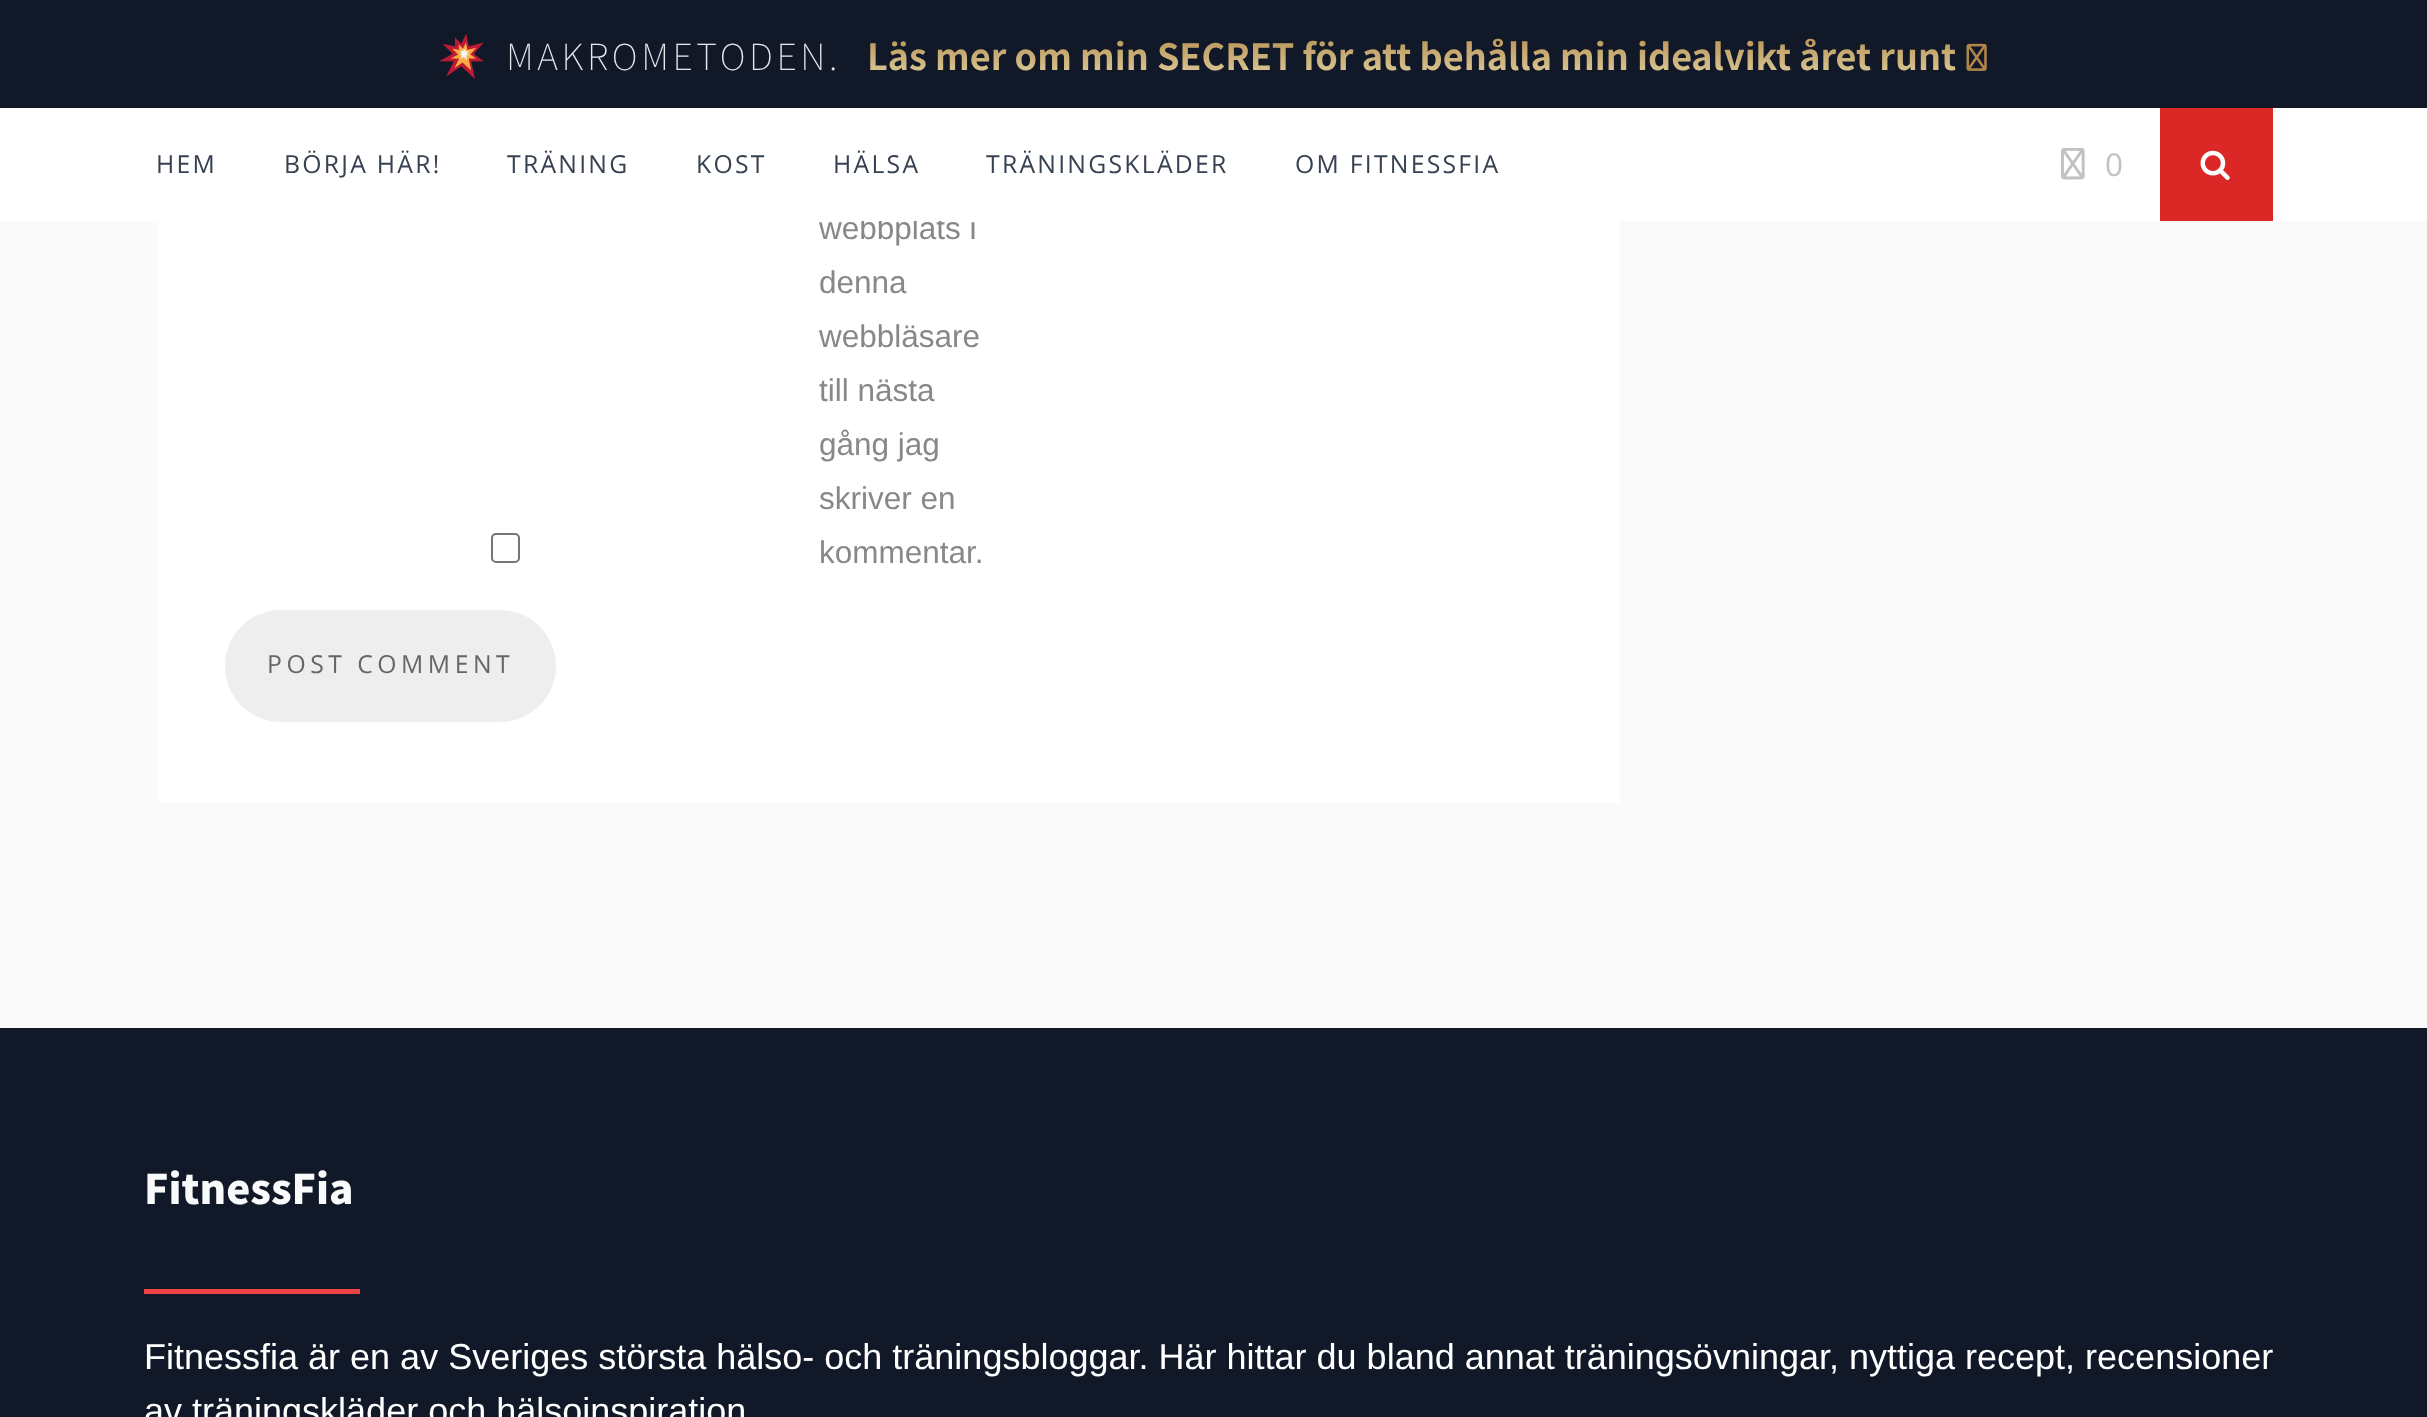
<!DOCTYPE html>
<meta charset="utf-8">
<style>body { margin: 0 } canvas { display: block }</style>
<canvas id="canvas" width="2427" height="1417"></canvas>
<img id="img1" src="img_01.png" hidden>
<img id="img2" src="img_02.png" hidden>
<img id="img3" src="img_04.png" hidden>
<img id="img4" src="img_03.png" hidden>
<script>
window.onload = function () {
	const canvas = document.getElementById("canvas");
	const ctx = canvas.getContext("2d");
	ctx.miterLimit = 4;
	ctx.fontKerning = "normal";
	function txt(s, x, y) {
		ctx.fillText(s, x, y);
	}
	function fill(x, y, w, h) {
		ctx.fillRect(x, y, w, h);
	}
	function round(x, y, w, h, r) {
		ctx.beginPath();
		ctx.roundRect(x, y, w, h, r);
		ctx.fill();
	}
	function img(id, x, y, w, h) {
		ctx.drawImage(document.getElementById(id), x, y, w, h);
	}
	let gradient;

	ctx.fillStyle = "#FAFAFA";
	fill(0, 0, 2427, 1417);
	ctx.fillStyle = "#111828";
	fill(0, 0, 2427, 108);
	img("img1", 439, 34, 45, 45);
	img("img2", 1966, 43, 21, 28);
	ctx.fillStyle = "#FFFFFF";
	fill(158, 221, 1462, 582);
	ctx.beginPath();
	ctx.roundRect(492, 534, 27, 28, 4);
	ctx.strokeStyle = "#767676";
	ctx.lineWidth = 2;
	ctx.stroke();
	ctx.fillStyle = "#EEEEEE";
	round(225, 610, 331, 112, 56);
	ctx.fillStyle = "#111827";
	fill(0, 1028, 2427, 389);
	ctx.fillStyle = "#EF4444";
	fill(144, 1289, 216, 5);
	ctx.letterSpacing = "3.6px";
	ctx.font = "100 36px Noto Sans JP";
	ctx.fillStyle = "#E5E7EB";
	txt("MAKROMETODEN.", 506, 70);
	ctx.letterSpacing = "0px";
	ctx.font = "bold 36px Noto Sans JP";
	gradient = ctx.createLinearGradient(1412, 27, 1412, 81);
	gradient.addColorStop(0, "#B18649");
	gradient.addColorStop(1, "#DFD09E");
	ctx.fillStyle = gradient;
	txt("Läs mer om min SECRET för att behålla min idealvikt året runt", 867, 70);
	ctx.font = "31.5px Liberation Sans";
	ctx.fillStyle = "#888888";
	txt("webbplats i", 819, 239);
	ctx.fillStyle = "#FFFFFF";
	fill(0, 108, 2427, 113);
	ctx.fillStyle = "#DC2727";
	fill(2160, 108, 113, 113);
	img("img3", 2200, 150, 30, 30);
	ctx.font = "31.5px Open Sans";
	ctx.fillStyle = "#C2C2C2";
	txt("0", 2105, 176);
	img("img4", 2061, 147, 24, 33);
	ctx.letterSpacing = "2.25px";
	ctx.font = "24.75px Open Sans";
	ctx.fillStyle = "#364151";
	txt("OM FITNESSFIA", 1295, 173);
	txt("TRÄNINGSKLÄDER", 986, 173);
	txt("HÄLSA", 833, 173);
	txt("KOST", 696, 173);
	txt("TRÄNING", 507, 173);
	txt("BÖRJA HÄR!", 284, 173);
	txt("HEM", 156, 173);
	ctx.letterSpacing = "0px";
	ctx.font = "31.5px Liberation Sans";
	ctx.fillStyle = "#888888";
	txt("denna", 819, 293);
	txt("webbläsare", 819, 347);
	txt("till nästa", 819, 401);
	txt("gång jag", 819, 455);
	txt("skriver en", 819, 509);
	txt("kommentar.", 819, 563);
	ctx.letterSpacing = "4.5px";
	ctx.font = "24.75px Open Sans";
	ctx.fillStyle = "#666666";
	txt("POST COMMENT", 267, 673);
	ctx.letterSpacing = "0px";
	ctx.font = "900 40.5px Noto Sans JP";
	ctx.fillStyle = "#F9FAFB";
	txt("FitnessFia", 144, 1204);
	ctx.font = "36px Liberation Sans";
	ctx.fillStyle = "#FFFFFF";
	txt("Fitnessfia är en av Sveriges största hälso- och träningsbloggar. Här hittar du bland annat träningsövningar, nyttiga recept, recensioner", 144, 1369);
	txt("av träningskläder och hälsoinspiration", 144, 1423);
};
</script>
